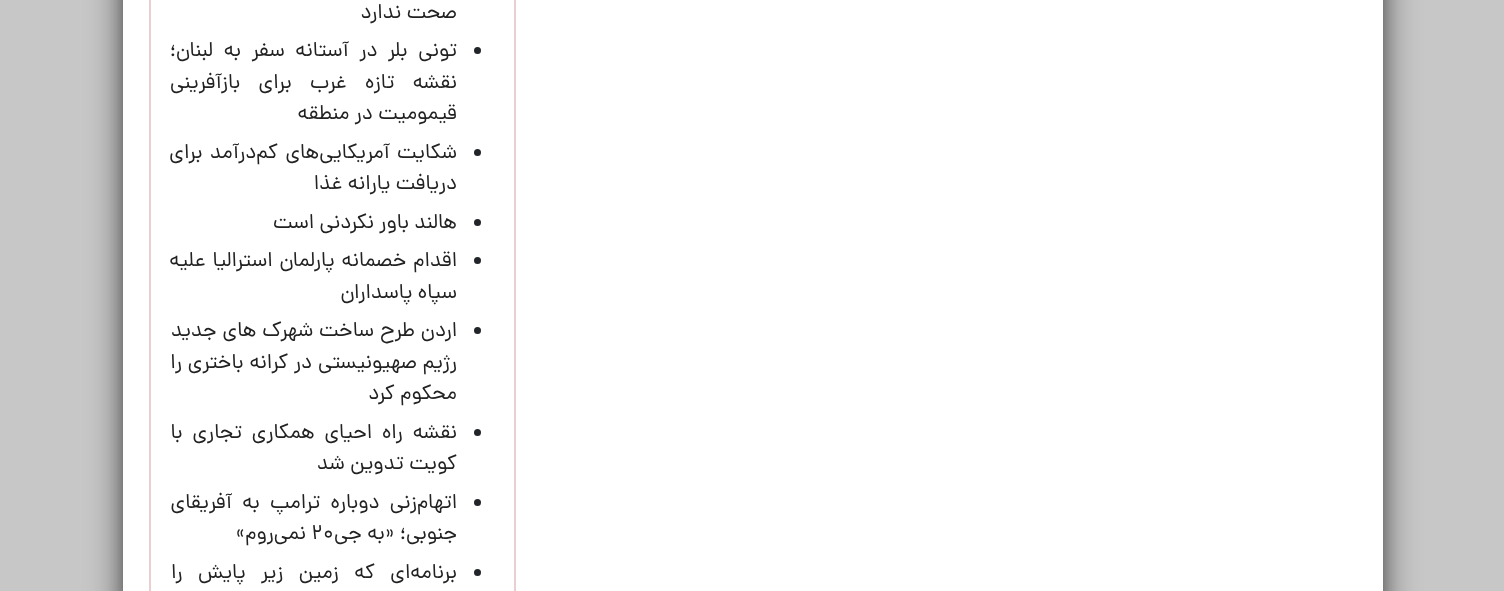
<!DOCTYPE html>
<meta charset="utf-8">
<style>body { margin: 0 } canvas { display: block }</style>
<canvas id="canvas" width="1504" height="591"></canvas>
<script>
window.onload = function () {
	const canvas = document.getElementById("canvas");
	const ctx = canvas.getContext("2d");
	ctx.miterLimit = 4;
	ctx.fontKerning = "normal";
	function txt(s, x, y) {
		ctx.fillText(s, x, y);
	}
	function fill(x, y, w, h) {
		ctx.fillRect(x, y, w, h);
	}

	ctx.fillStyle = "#C7C7C7";
	fill(0, 0, 1504, 591);
	ctx.fillStyle = "rgba(0, 0, 0, 0.6)";
	ctx.filter = "blur(17.5px)";
	ctx.beginPath();
	ctx.rect(123, -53, 1260, 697);
	ctx.fill();
	ctx.filter = "none";
	ctx.fillStyle = "rgba(0, 0, 0, 0.2)";
	ctx.filter = "blur(7px)";
	ctx.beginPath();
	ctx.rect(123, -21, 1260, 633);
	ctx.fill();
	ctx.filter = "none";
	ctx.fillStyle = "#FFFFFF";
	fill(123, 0, 1260, 591);
	ctx.strokeStyle = "#EACFD2";
	ctx.lineWidth = 2;
	ctx.strokeRect(150, -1, 365, 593);
	ctx.fillStyle = "#212529";
	ctx.beginPath();
	ctx.arc(477.5, 50.5, 3.5, 0, Math.PI * 2);
	ctx.fill();
	ctx.beginPath();
	ctx.arc(477.5, 152.5, 3.5, 0, Math.PI * 2);
	ctx.fill();
	ctx.beginPath();
	ctx.arc(477.5, 222.5, 3.5, 0, Math.PI * 2);
	ctx.fill();
	ctx.beginPath();
	ctx.arc(477.5, 260.5, 3.5, 0, Math.PI * 2);
	ctx.fill();
	ctx.beginPath();
	ctx.arc(477.5, 330.5, 3.5, 0, Math.PI * 2);
	ctx.fill();
	ctx.beginPath();
	ctx.arc(477.5, 432.5, 3.5, 0, Math.PI * 2);
	ctx.fill();
	ctx.beginPath();
	ctx.arc(477.5, 502.5, 3.5, 0, Math.PI * 2);
	ctx.fill();
	ctx.beginPath();
	ctx.arc(477.5, 572.5, 3.5, 0, Math.PI * 2);
	ctx.fill();
	ctx.direction = "rtl";
	ctx.font = "21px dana";
	ctx.fillStyle = "#222222";
	txt("صحت ندارد", 457, 18);
	ctx.wordSpacing = "5.25px";
	txt("تونی بلر در آستانه سفر به لبنان؛", 457, 56);
	ctx.wordSpacing = "13px";
	txt("نقشه تازه غرب برای بازآفرینی", 457, 88);
	ctx.wordSpacing = "0px";
	txt("قیمومیت در منطقه", 457, 119);
	ctx.wordSpacing = "2px";
	txt("شکایت آمریکایی‌های کم‌درآمد برای", 457, 158);
	ctx.wordSpacing = "0px";
	txt("دریافت یارانه غذا", 457, 189);
	txt("هالند باور نکردنی است", 457, 228);
	ctx.wordSpacing = "1.5px";
	txt("اقدام خصمانه پارلمان استرالیا علیه", 457, 266);
	ctx.wordSpacing = "0px";
	txt("سپاه پاسداران", 457, 298);
	ctx.wordSpacing = "0.5px";
	txt("اردن طرح ساخت شهرک‌ های جدید", 457, 336);
	txt("رژیم صهیونیستی در کرانه باختری را", 457, 368);
	ctx.wordSpacing = "0px";
	txt("محکوم کرد", 457, 399);
	ctx.wordSpacing = "4.5px";
	txt("نقشه راه احیای همکاری تجاری با", 457, 438);
	ctx.wordSpacing = "0px";
	txt("کویت تدوین شد", 457, 469);
	ctx.wordSpacing = "5px";
	txt("اتهام‌زنی دوباره ترامپ به آفریقای", 457, 508);
	ctx.wordSpacing = "0px";
	txt("جنوبی؛ «به جی", 457, 539);
	ctx.direction = "ltr";
	txt("۲۰", 311, 539);
	ctx.direction = "rtl";
	txt("نمی‌روم»", 306, 539);
	ctx.wordSpacing = "10px";
	txt("برنامه‌ای که زمین زیر پایش را", 457, 578);
};
</script>
